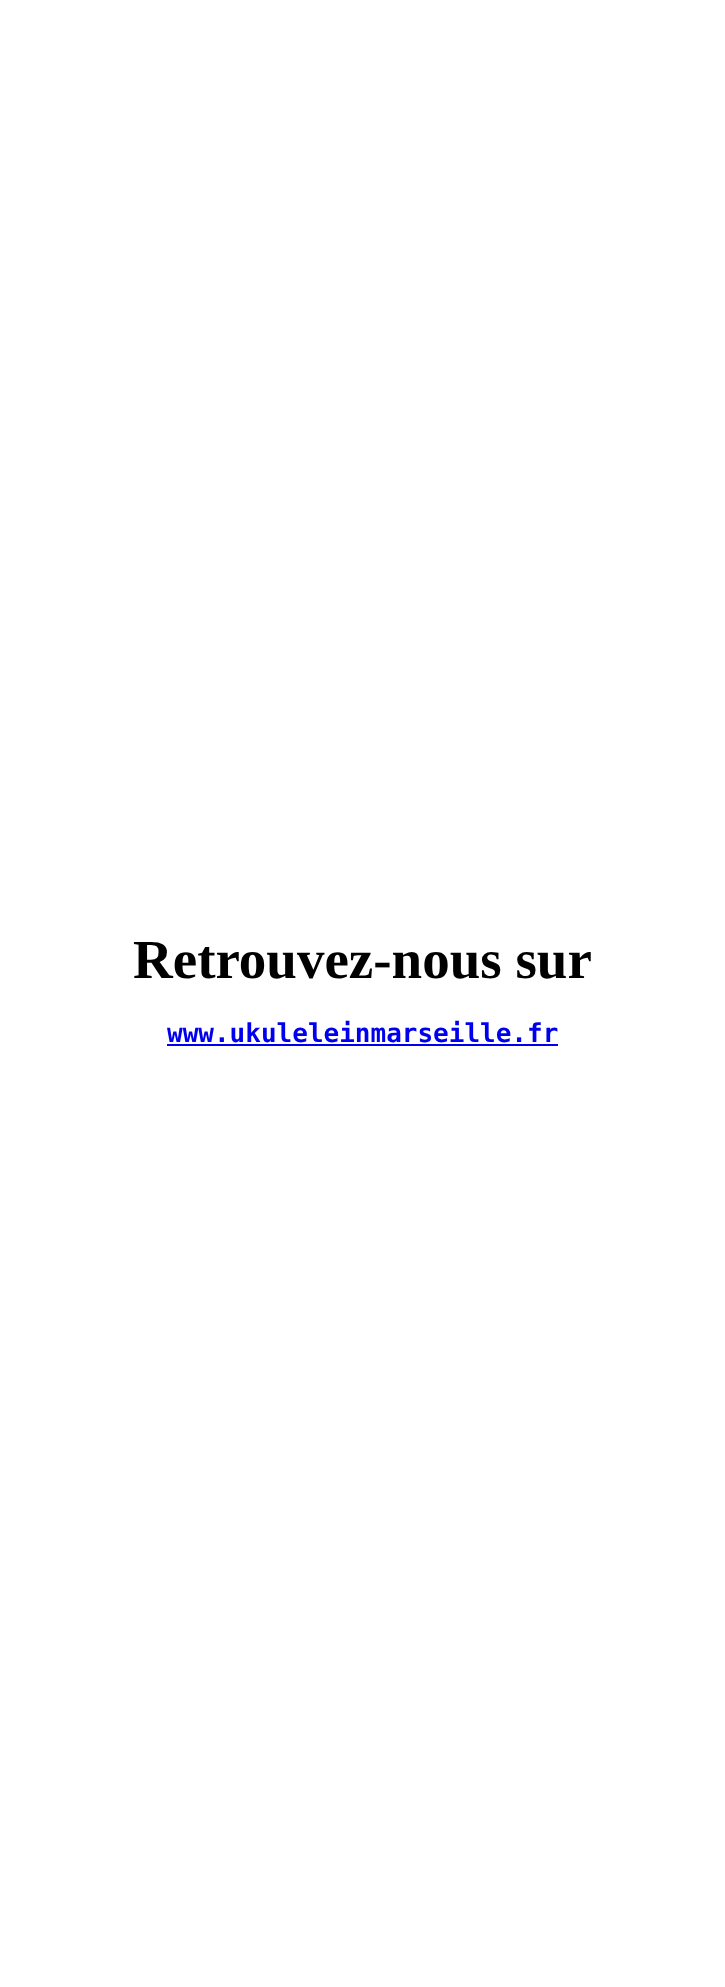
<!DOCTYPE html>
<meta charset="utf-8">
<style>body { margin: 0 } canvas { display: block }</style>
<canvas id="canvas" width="725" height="1987"></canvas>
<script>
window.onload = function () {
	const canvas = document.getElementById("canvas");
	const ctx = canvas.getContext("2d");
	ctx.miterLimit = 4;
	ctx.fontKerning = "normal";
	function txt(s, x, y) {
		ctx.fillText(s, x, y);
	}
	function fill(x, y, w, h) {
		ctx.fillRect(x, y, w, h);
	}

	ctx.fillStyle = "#FFFFFF";
	fill(0, 0, 725, 1987);
	ctx.fillStyle = "#0000EE";
	fill(167, 1044, 391, 2);
	ctx.font = "bold 55px Liberation Serif";
	ctx.fillStyle = "#000000";
	txt("Retrouvez-nous sur", 133, 978);
	ctx.font = "bold 26px DejaVu Sans Mono";
	ctx.fillStyle = "#0000EE";
	txt("www.ukuleleinmarseille.fr", 167, 1042);
};
</script>
